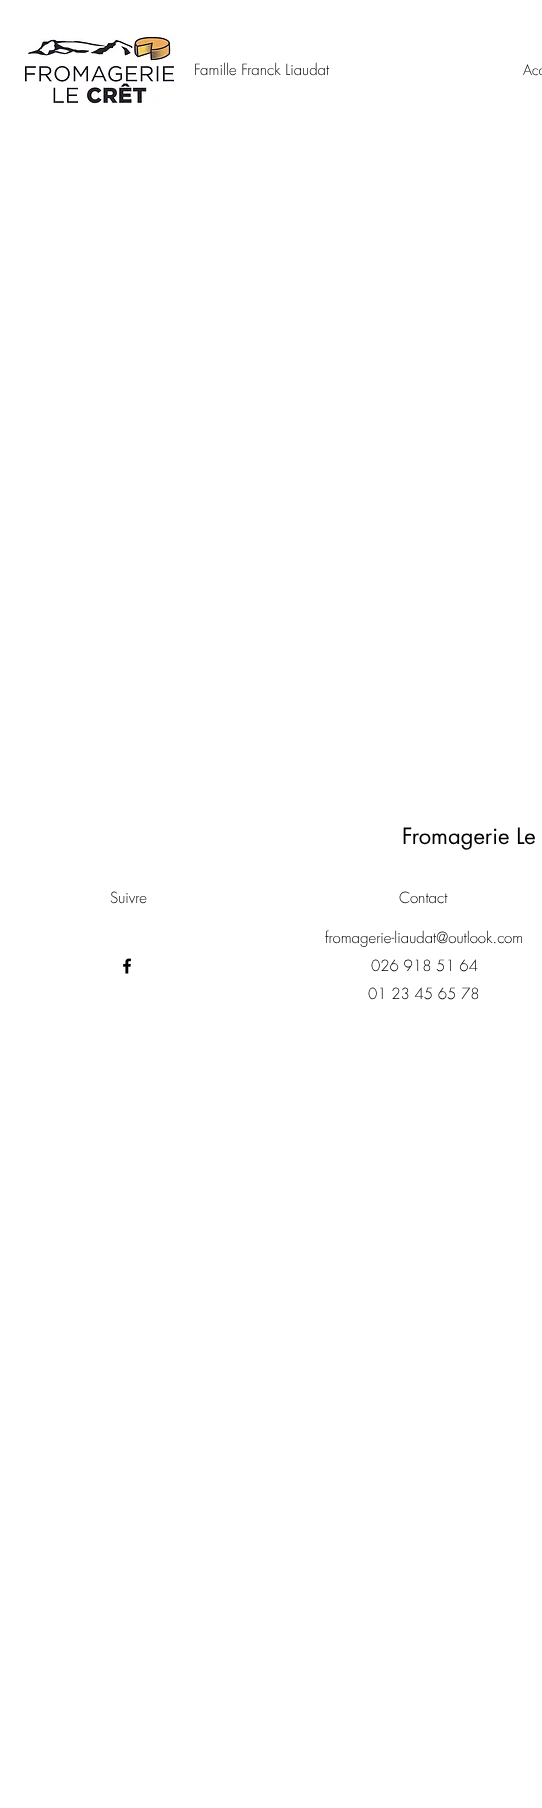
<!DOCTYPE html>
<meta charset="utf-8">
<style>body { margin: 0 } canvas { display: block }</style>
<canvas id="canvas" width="542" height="1808"></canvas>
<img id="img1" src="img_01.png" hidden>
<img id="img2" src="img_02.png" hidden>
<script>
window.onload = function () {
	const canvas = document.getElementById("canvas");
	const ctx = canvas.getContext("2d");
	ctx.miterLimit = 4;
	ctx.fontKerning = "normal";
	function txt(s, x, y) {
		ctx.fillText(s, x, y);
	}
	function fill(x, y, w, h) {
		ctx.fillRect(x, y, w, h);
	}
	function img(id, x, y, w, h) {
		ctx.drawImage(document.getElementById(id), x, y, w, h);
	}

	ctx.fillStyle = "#FFFFFF";
	fill(0, 0, 542, 1808);
	img("img1", 24, 34, 152, 72);
	img("img2", 123, 958, 9, 16);
	ctx.font = "300 15px futura";
	ctx.fillStyle = "#000000";
	txt("Famille Franck Liaudat", 194, 75);
	ctx.font = "300 14px futura";
	txt("Acc", 523, 75);
	ctx.font = "22px futura";
	txt("Fromagerie Le", 402, 844);
	ctx.font = "300 15px futura";
	txt("Suivre", 110, 903);
	txt("Contact", 399, 903);
	txt("fromagerie-liaudat@outlook.com", 325, 943);
	txt("026 918 51 64", 371, 971);
	txt("01 23 45 65 78", 368, 999);
};
</script>
